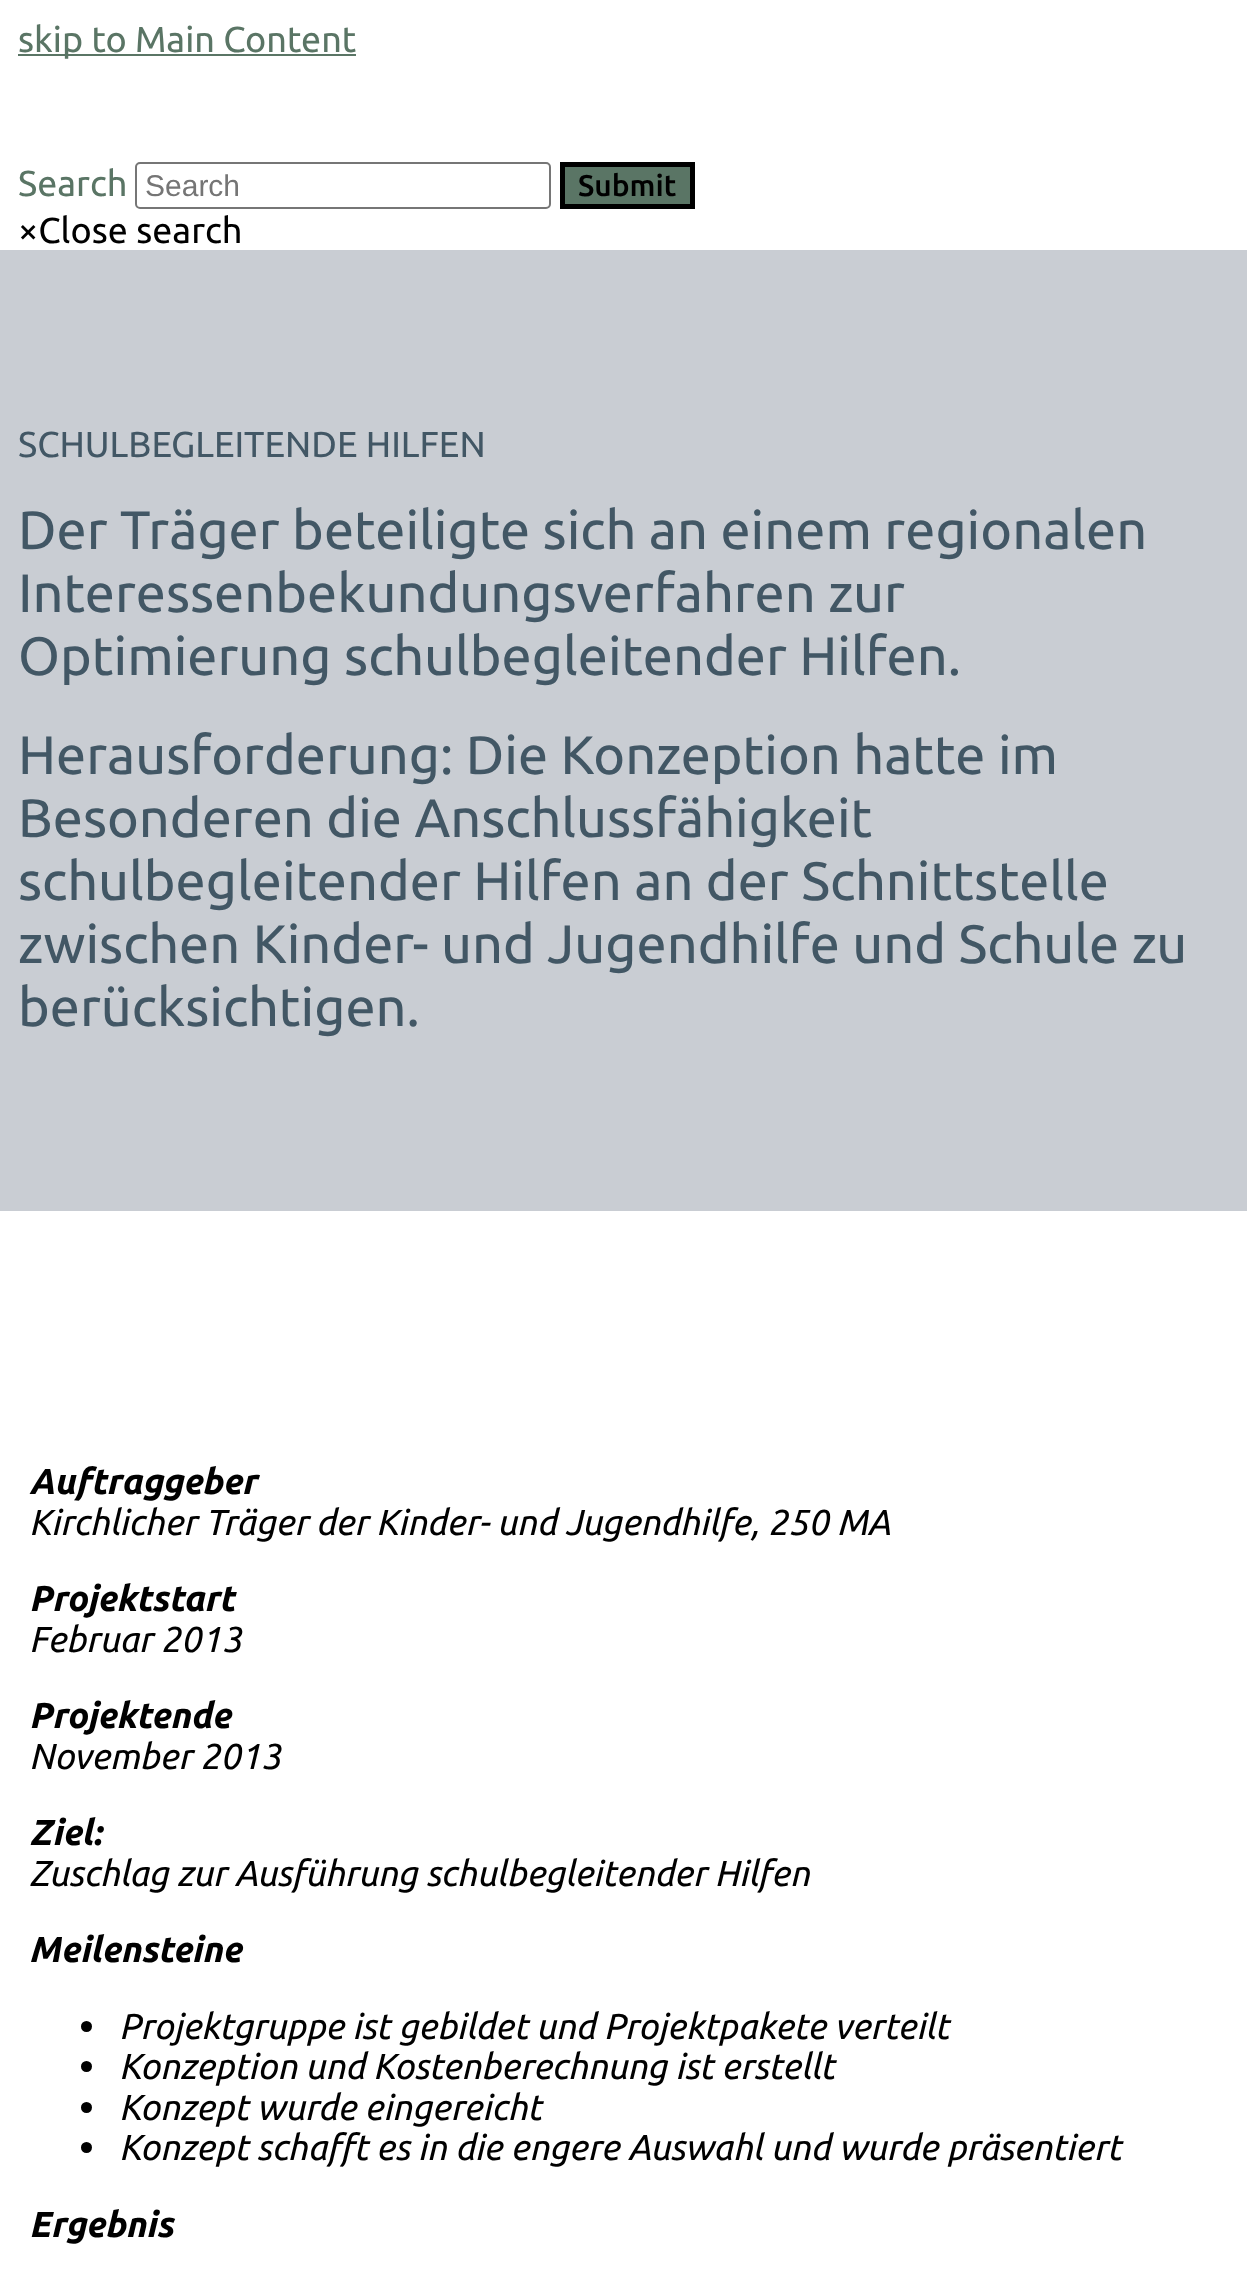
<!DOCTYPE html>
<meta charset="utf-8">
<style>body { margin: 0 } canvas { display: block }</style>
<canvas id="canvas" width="1247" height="2293"></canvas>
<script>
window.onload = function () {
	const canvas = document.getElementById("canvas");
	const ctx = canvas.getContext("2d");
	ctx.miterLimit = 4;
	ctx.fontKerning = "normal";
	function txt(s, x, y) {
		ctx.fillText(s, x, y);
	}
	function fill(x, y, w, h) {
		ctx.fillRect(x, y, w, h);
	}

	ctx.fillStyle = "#FFFFFF";
	fill(0, 0, 1247, 2293);
	ctx.fillStyle = "#5A7565";
	fill(18, 54, 338, 2);
	ctx.beginPath();
	ctx.roundRect(136, 163, 414, 45, 4);
	ctx.strokeStyle = "#767676";
	ctx.lineWidth = 2;
	ctx.stroke();
	ctx.beginPath();
	ctx.rect(562.5, 164.5, 130, 42);
	ctx.fill();
	ctx.strokeStyle = "#000000";
	ctx.lineWidth = 5;
	ctx.stroke();
	ctx.fillStyle = "#C9CDD3";
	fill(0, 250, 1247, 961);
	ctx.fillStyle = "#000000";
	ctx.beginPath();
	ctx.arc(86.5, 2026.5, 5.5, 0, Math.PI * 2);
	ctx.fill();
	ctx.beginPath();
	ctx.arc(86.5, 2066.5, 5.5, 0, Math.PI * 2);
	ctx.fill();
	ctx.beginPath();
	ctx.arc(86.5, 2107.5, 5.5, 0, Math.PI * 2);
	ctx.fill();
	ctx.beginPath();
	ctx.arc(86.5, 2147.5, 5.5, 0, Math.PI * 2);
	ctx.fill();
	ctx.font = "36px Ubuntu";
	ctx.fillStyle = "#5A7565";
	txt("skip to Main Content", 18, 52);
	txt("Search", 18, 196);
	ctx.font = "30px Liberation Sans";
	ctx.fillStyle = "#757575";
	txt("Search", 145, 196);
	ctx.font = "500 30px Ubuntu";
	ctx.fillStyle = "#000000";
	txt("Submit", 578, 196);
	ctx.font = "36px Ubuntu";
	txt("×Close search", 18, 243);
	ctx.fillStyle = "#425765";
	txt("SCHULBEGLEITENDE HILFEN", 18, 457);
	ctx.font = "54px Ubuntu";
	txt("Der Träger beteiligte sich an einem regionalen", 18, 549);
	txt("Interessenbekundungsverfahren zur", 18, 612);
	txt("Optimierung schulbegleitender Hilfen.", 18, 675);
	txt("Herausforderung: Die Konzeption hatte im", 18, 774);
	txt("Besonderen die Anschlussfähigkeit", 18, 837);
	txt("schulbegleitender Hilfen an der Schnittstelle", 18, 900);
	txt("zwischen Kinder- und Jugendhilfe und Schule zu", 18, 963);
	txt("berücksichtigen.", 18, 1026);
	ctx.font = "italic bold 36px Ubuntu";
	ctx.fillStyle = "#000000";
	txt("Auftraggeber", 29, 1494);
	ctx.font = "italic 36px Ubuntu";
	txt("Kirchlicher Träger der Kinder- und Jugendhilfe, 250 MA", 29, 1535);
	ctx.font = "italic bold 36px Ubuntu";
	txt("Projektstart", 29, 1611);
	ctx.font = "italic 36px Ubuntu";
	txt("Februar 2013", 29, 1652);
	ctx.font = "italic bold 36px Ubuntu";
	txt("Projektende", 29, 1728);
	ctx.font = "italic 36px Ubuntu";
	txt("November 2013", 29, 1769);
	ctx.font = "italic bold 36px Ubuntu";
	txt("Ziel:", 29, 1845);
	ctx.font = "italic 36px Ubuntu";
	txt("Zuschlag zur Ausführung schulbegleitender Hilfen", 29, 1886);
	ctx.font = "italic bold 36px Ubuntu";
	txt("Meilensteine", 29, 1962);
	ctx.font = "italic 36px Ubuntu";
	txt("Projektgruppe ist gebildet und Projektpakete verteilt", 119, 2039);
	txt("Konzeption und Kostenberechnung ist erstellt", 119, 2079);
	txt("Konzept wurde eingereicht", 119, 2120);
	txt("Konzept schafft es in die engere Auswahl und wurde präsentiert", 119, 2160);
	ctx.font = "italic bold 36px Ubuntu";
	txt("Ergebnis", 29, 2237);
};
</script>
